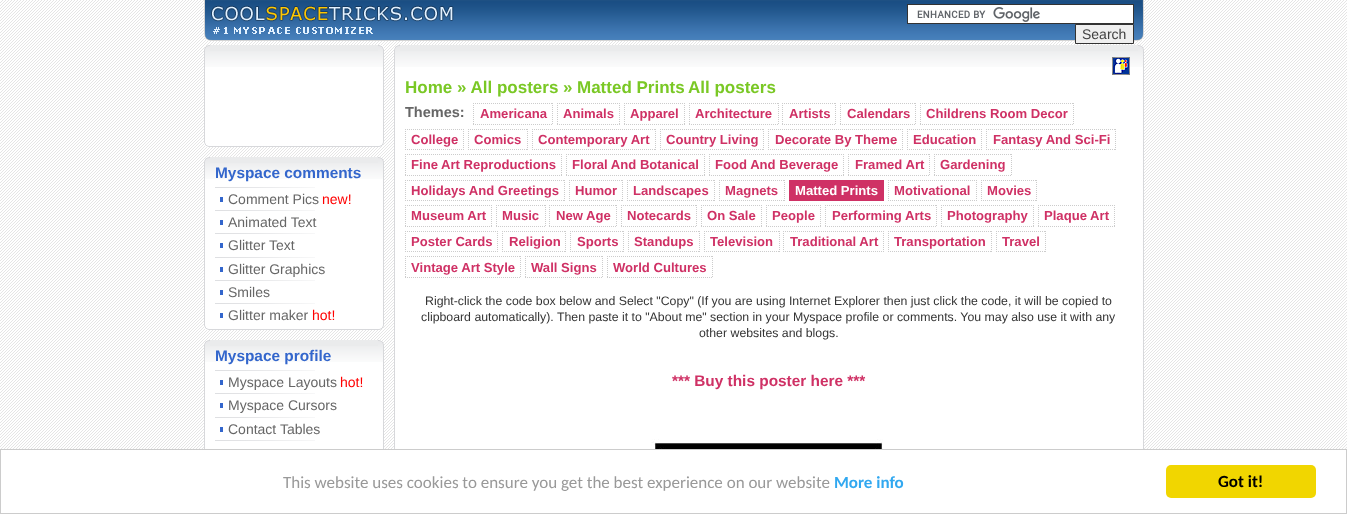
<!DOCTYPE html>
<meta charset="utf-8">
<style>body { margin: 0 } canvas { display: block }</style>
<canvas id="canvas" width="1347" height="514"></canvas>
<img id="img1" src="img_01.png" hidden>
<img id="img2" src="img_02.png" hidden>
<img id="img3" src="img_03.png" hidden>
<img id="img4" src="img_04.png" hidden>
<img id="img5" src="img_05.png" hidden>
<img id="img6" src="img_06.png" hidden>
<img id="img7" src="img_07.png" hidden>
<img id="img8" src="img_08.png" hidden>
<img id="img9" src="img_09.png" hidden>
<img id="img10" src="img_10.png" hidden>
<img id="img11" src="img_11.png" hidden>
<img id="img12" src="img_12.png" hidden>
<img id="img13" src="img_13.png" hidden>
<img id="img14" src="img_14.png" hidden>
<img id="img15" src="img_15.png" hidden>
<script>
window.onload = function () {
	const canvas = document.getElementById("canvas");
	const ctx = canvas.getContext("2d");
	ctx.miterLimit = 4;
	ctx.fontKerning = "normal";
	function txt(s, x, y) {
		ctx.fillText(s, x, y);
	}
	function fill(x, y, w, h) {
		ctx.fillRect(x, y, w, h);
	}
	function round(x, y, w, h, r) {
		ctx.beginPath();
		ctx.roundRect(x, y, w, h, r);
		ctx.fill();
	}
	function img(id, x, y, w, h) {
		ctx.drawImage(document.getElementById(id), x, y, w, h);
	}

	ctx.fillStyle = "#FFFFFF";
	fill(0, 0, 1347, 514);
	img("img1", 0, 0, 1347, 449);
	img("img2", 204, 0, 940, 41);
	fill(908, 5, 225, 18);
	img("img3", 917, 7, 123, 15);
	ctx.strokeStyle = "#333333";
	ctx.strokeRect(907.5, 4.5, 226, 19);
	ctx.fillStyle = "#EFEFEF";
	ctx.beginPath();
	ctx.rect(1075.5, 24.5, 58, 19);
	ctx.fill();
	ctx.stroke();
	img("img4", 204, 45, 6, 6);
	ctx.fillStyle = "#EAEBEC";
	fill(210, 45, 168, 6);
	img("img5", 378, 45, 6, 6);
	ctx.fillStyle = "#FFFFFF";
	fill(205, 67, 178, 74);
	ctx.fillStyle = "#D7D8DB";
	fill(204, 51, 1, 90);
	img("img6", 205, 51, 5, 16);
	img("img7", 210, 51, 168, 16);
	fill(383, 51, 1, 90);
	img("img6", 378, 51, 5, 16);
	img("img8", 204, 141, 6, 6);
	ctx.fillStyle = "#FFFFFF";
	fill(210, 141, 168, 5);
	ctx.fillStyle = "#D7D8DB";
	fill(210, 146, 168, 1);
	img("img9", 378, 141, 6, 6);
	img("img10", 204, 157, 6, 6);
	ctx.fillStyle = "#EAEBEC";
	fill(210, 157, 168, 6);
	img("img11", 378, 157, 6, 6);
	ctx.fillStyle = "#FFFFFF";
	fill(205, 179, 178, 145);
	ctx.fillStyle = "#D7D8DB";
	fill(204, 163, 1, 161);
	img("img6", 205, 163, 5, 16);
	img("img7", 210, 163, 168, 16);
	img("img12", 215, 187, 100, 1);
	ctx.fillStyle = "#3366CC";
	fill(220, 197, 3, 5);
	img("img12", 215, 210, 100, 1);
	fill(220, 220, 3, 5);
	img("img12", 215, 233, 100, 1);
	fill(220, 243, 3, 5);
	img("img12", 215, 257, 100, 1);
	fill(220, 267, 3, 5);
	img("img12", 215, 280, 100, 1);
	fill(220, 290, 3, 5);
	img("img12", 215, 303, 100, 1);
	fill(220, 313, 3, 5);
	ctx.fillStyle = "#D7D8DB";
	fill(383, 163, 1, 161);
	img("img6", 378, 163, 5, 16);
	img("img8", 204, 324, 6, 6);
	ctx.fillStyle = "#FFFFFF";
	fill(210, 324, 168, 5);
	ctx.fillStyle = "#D7D8DB";
	fill(210, 329, 168, 1);
	img("img9", 378, 324, 6, 6);
	img("img10", 204, 340, 6, 6);
	ctx.fillStyle = "#EAEBEC";
	fill(210, 340, 168, 6);
	img("img11", 378, 340, 6, 6);
	ctx.fillStyle = "#FFFFFF";
	fill(205, 362, 178, 87);
	ctx.fillStyle = "#D7D8DB";
	fill(204, 346, 1, 103);
	img("img6", 205, 346, 5, 16);
	img("img7", 210, 346, 168, 16);
	img("img12", 215, 370, 100, 1);
	ctx.fillStyle = "#3366CC";
	fill(220, 380, 3, 5);
	img("img12", 215, 393, 100, 1);
	fill(220, 403, 3, 5);
	img("img12", 215, 417, 100, 1);
	fill(220, 427, 3, 5);
	img("img12", 215, 440, 100, 1);
	ctx.fillStyle = "#D7D8DB";
	fill(383, 346, 1, 103);
	img("img6", 378, 346, 5, 16);
	img("img10", 394, 45, 6, 6);
	ctx.fillStyle = "#EAEBEC";
	fill(400, 45, 738, 6);
	img("img11", 1138, 45, 6, 6);
	ctx.fillStyle = "#FFFFFF";
	fill(395, 67, 748, 382);
	ctx.fillStyle = "#D7D8DB";
	fill(394, 51, 1, 398);
	img("img6", 395, 51, 5, 16);
	img("img13", 400, 51, 738, 16);
	img("img14", 1112, 57, 18, 18);
	ctx.beginPath();
	ctx.moveTo(473, 103.5);
	ctx.lineTo(553, 103.5);
	ctx.strokeStyle = "#CCCCCC";
	ctx.setLineDash([1, 1]);
	ctx.stroke();
	ctx.beginPath();
	ctx.moveTo(552.5, 103);
	ctx.lineTo(552.5, 125);
	ctx.stroke();
	ctx.beginPath();
	ctx.moveTo(473, 124.5);
	ctx.lineTo(553, 124.5);
	ctx.stroke();
	ctx.beginPath();
	ctx.moveTo(473.5, 103);
	ctx.lineTo(473.5, 125);
	ctx.stroke();
	ctx.beginPath();
	ctx.moveTo(557, 103.5);
	ctx.lineTo(620, 103.5);
	ctx.moveTo(619.5, 103);
	ctx.lineTo(619.5, 125);
	ctx.moveTo(557, 124.5);
	ctx.lineTo(620, 124.5);
	ctx.moveTo(557.5, 103);
	ctx.lineTo(557.5, 125);
	ctx.stroke();
	ctx.beginPath();
	ctx.moveTo(624, 103.5);
	ctx.lineTo(685, 103.5);
	ctx.moveTo(684.5, 103);
	ctx.lineTo(684.5, 125);
	ctx.moveTo(624, 124.5);
	ctx.lineTo(685, 124.5);
	ctx.moveTo(624.5, 103);
	ctx.lineTo(624.5, 125);
	ctx.stroke();
	ctx.beginPath();
	ctx.moveTo(689, 103.5);
	ctx.lineTo(779, 103.5);
	ctx.stroke();
	ctx.beginPath();
	ctx.moveTo(778.5, 103);
	ctx.lineTo(778.5, 125);
	ctx.stroke();
	ctx.beginPath();
	ctx.moveTo(689, 124.5);
	ctx.lineTo(779, 124.5);
	ctx.stroke();
	ctx.beginPath();
	ctx.moveTo(689.5, 103);
	ctx.lineTo(689.5, 125);
	ctx.stroke();
	ctx.beginPath();
	ctx.moveTo(782, 103.5);
	ctx.lineTo(836, 103.5);
	ctx.moveTo(835.5, 103);
	ctx.lineTo(835.5, 125);
	ctx.moveTo(782, 124.5);
	ctx.lineTo(836, 124.5);
	ctx.moveTo(782.5, 103);
	ctx.lineTo(782.5, 125);
	ctx.stroke();
	ctx.beginPath();
	ctx.moveTo(840, 103.5);
	ctx.lineTo(916, 103.5);
	ctx.stroke();
	ctx.beginPath();
	ctx.moveTo(915.5, 103);
	ctx.lineTo(915.5, 125);
	ctx.stroke();
	ctx.beginPath();
	ctx.moveTo(840, 124.5);
	ctx.lineTo(916, 124.5);
	ctx.stroke();
	ctx.beginPath();
	ctx.moveTo(840.5, 103);
	ctx.lineTo(840.5, 125);
	ctx.stroke();
	ctx.beginPath();
	ctx.moveTo(920, 103.5);
	ctx.lineTo(1074, 103.5);
	ctx.stroke();
	ctx.beginPath();
	ctx.moveTo(1073.5, 103);
	ctx.lineTo(1073.5, 125);
	ctx.stroke();
	ctx.beginPath();
	ctx.moveTo(920, 124.5);
	ctx.lineTo(1074, 124.5);
	ctx.stroke();
	ctx.beginPath();
	ctx.moveTo(920.5, 103);
	ctx.lineTo(920.5, 125);
	ctx.stroke();
	ctx.beginPath();
	ctx.moveTo(405, 129.5);
	ctx.lineTo(464, 129.5);
	ctx.moveTo(463.5, 129);
	ctx.lineTo(463.5, 150);
	ctx.moveTo(405, 149.5);
	ctx.lineTo(464, 149.5);
	ctx.moveTo(405.5, 129);
	ctx.lineTo(405.5, 150);
	ctx.stroke();
	ctx.beginPath();
	ctx.moveTo(468, 129.5);
	ctx.lineTo(528, 129.5);
	ctx.moveTo(527.5, 129);
	ctx.lineTo(527.5, 150);
	ctx.moveTo(468, 149.5);
	ctx.lineTo(528, 149.5);
	ctx.moveTo(468.5, 129);
	ctx.lineTo(468.5, 150);
	ctx.stroke();
	ctx.beginPath();
	ctx.moveTo(532, 129.5);
	ctx.lineTo(656, 129.5);
	ctx.stroke();
	ctx.beginPath();
	ctx.moveTo(655.5, 129);
	ctx.lineTo(655.5, 150);
	ctx.stroke();
	ctx.beginPath();
	ctx.moveTo(532, 149.5);
	ctx.lineTo(656, 149.5);
	ctx.stroke();
	ctx.beginPath();
	ctx.moveTo(532.5, 129);
	ctx.lineTo(532.5, 150);
	ctx.stroke();
	ctx.beginPath();
	ctx.moveTo(660, 129.5);
	ctx.lineTo(764, 129.5);
	ctx.stroke();
	ctx.beginPath();
	ctx.moveTo(763.5, 129);
	ctx.lineTo(763.5, 150);
	ctx.stroke();
	ctx.beginPath();
	ctx.moveTo(660, 149.5);
	ctx.lineTo(764, 149.5);
	ctx.stroke();
	ctx.beginPath();
	ctx.moveTo(660.5, 129);
	ctx.lineTo(660.5, 150);
	ctx.stroke();
	ctx.beginPath();
	ctx.moveTo(768, 129.5);
	ctx.lineTo(903, 129.5);
	ctx.stroke();
	ctx.beginPath();
	ctx.moveTo(902.5, 129);
	ctx.lineTo(902.5, 150);
	ctx.stroke();
	ctx.beginPath();
	ctx.moveTo(768, 149.5);
	ctx.lineTo(903, 149.5);
	ctx.stroke();
	ctx.beginPath();
	ctx.moveTo(768.5, 129);
	ctx.lineTo(768.5, 150);
	ctx.stroke();
	ctx.beginPath();
	ctx.moveTo(907, 129.5);
	ctx.lineTo(982, 129.5);
	ctx.stroke();
	ctx.beginPath();
	ctx.moveTo(981.5, 129);
	ctx.lineTo(981.5, 150);
	ctx.stroke();
	ctx.beginPath();
	ctx.moveTo(907, 149.5);
	ctx.lineTo(982, 149.5);
	ctx.stroke();
	ctx.beginPath();
	ctx.moveTo(907.5, 129);
	ctx.lineTo(907.5, 150);
	ctx.stroke();
	ctx.beginPath();
	ctx.moveTo(986, 129.5);
	ctx.lineTo(1116, 129.5);
	ctx.stroke();
	ctx.beginPath();
	ctx.moveTo(1115.5, 129);
	ctx.lineTo(1115.5, 150);
	ctx.stroke();
	ctx.beginPath();
	ctx.moveTo(986, 149.5);
	ctx.lineTo(1116, 149.5);
	ctx.stroke();
	ctx.beginPath();
	ctx.moveTo(986.5, 129);
	ctx.lineTo(986.5, 150);
	ctx.stroke();
	ctx.beginPath();
	ctx.moveTo(405, 154.5);
	ctx.lineTo(562, 154.5);
	ctx.stroke();
	ctx.beginPath();
	ctx.moveTo(561.5, 154);
	ctx.lineTo(561.5, 176);
	ctx.stroke();
	ctx.beginPath();
	ctx.moveTo(405, 175.5);
	ctx.lineTo(562, 175.5);
	ctx.stroke();
	ctx.beginPath();
	ctx.moveTo(405.5, 154);
	ctx.lineTo(405.5, 176);
	ctx.stroke();
	ctx.beginPath();
	ctx.moveTo(566, 154.5);
	ctx.lineTo(705, 154.5);
	ctx.stroke();
	ctx.beginPath();
	ctx.moveTo(704.5, 154);
	ctx.lineTo(704.5, 176);
	ctx.stroke();
	ctx.beginPath();
	ctx.moveTo(566, 175.5);
	ctx.lineTo(705, 175.5);
	ctx.stroke();
	ctx.beginPath();
	ctx.moveTo(566.5, 154);
	ctx.lineTo(566.5, 176);
	ctx.stroke();
	ctx.beginPath();
	ctx.moveTo(709, 154.5);
	ctx.lineTo(844, 154.5);
	ctx.stroke();
	ctx.beginPath();
	ctx.moveTo(843.5, 154);
	ctx.lineTo(843.5, 176);
	ctx.stroke();
	ctx.beginPath();
	ctx.moveTo(709, 175.5);
	ctx.lineTo(844, 175.5);
	ctx.stroke();
	ctx.beginPath();
	ctx.moveTo(709.5, 154);
	ctx.lineTo(709.5, 176);
	ctx.stroke();
	ctx.beginPath();
	ctx.moveTo(848, 154.5);
	ctx.lineTo(930, 154.5);
	ctx.stroke();
	ctx.beginPath();
	ctx.moveTo(929.5, 154);
	ctx.lineTo(929.5, 176);
	ctx.stroke();
	ctx.beginPath();
	ctx.moveTo(848, 175.5);
	ctx.lineTo(930, 175.5);
	ctx.stroke();
	ctx.beginPath();
	ctx.moveTo(848.5, 154);
	ctx.lineTo(848.5, 176);
	ctx.stroke();
	ctx.beginPath();
	ctx.moveTo(934, 154.5);
	ctx.lineTo(1012, 154.5);
	ctx.stroke();
	ctx.beginPath();
	ctx.moveTo(1011.5, 154);
	ctx.lineTo(1011.5, 176);
	ctx.stroke();
	ctx.beginPath();
	ctx.moveTo(934, 175.5);
	ctx.lineTo(1012, 175.5);
	ctx.stroke();
	ctx.beginPath();
	ctx.moveTo(934.5, 154);
	ctx.lineTo(934.5, 176);
	ctx.stroke();
	ctx.beginPath();
	ctx.moveTo(405, 180.5);
	ctx.lineTo(565, 180.5);
	ctx.stroke();
	ctx.beginPath();
	ctx.moveTo(564.5, 180);
	ctx.lineTo(564.5, 201);
	ctx.stroke();
	ctx.beginPath();
	ctx.moveTo(405, 200.5);
	ctx.lineTo(565, 200.5);
	ctx.stroke();
	ctx.beginPath();
	ctx.moveTo(405.5, 180);
	ctx.lineTo(405.5, 201);
	ctx.stroke();
	ctx.beginPath();
	ctx.moveTo(569, 180.5);
	ctx.lineTo(623, 180.5);
	ctx.moveTo(622.5, 180);
	ctx.lineTo(622.5, 201);
	ctx.moveTo(569, 200.5);
	ctx.lineTo(623, 200.5);
	ctx.moveTo(569.5, 180);
	ctx.lineTo(569.5, 201);
	ctx.stroke();
	ctx.beginPath();
	ctx.moveTo(627, 180.5);
	ctx.lineTo(715, 180.5);
	ctx.stroke();
	ctx.beginPath();
	ctx.moveTo(714.5, 180);
	ctx.lineTo(714.5, 201);
	ctx.stroke();
	ctx.beginPath();
	ctx.moveTo(627, 200.5);
	ctx.lineTo(715, 200.5);
	ctx.stroke();
	ctx.beginPath();
	ctx.moveTo(627.5, 180);
	ctx.lineTo(627.5, 201);
	ctx.stroke();
	ctx.beginPath();
	ctx.moveTo(719, 180.5);
	ctx.lineTo(785, 180.5);
	ctx.stroke();
	ctx.beginPath();
	ctx.moveTo(784.5, 180);
	ctx.lineTo(784.5, 201);
	ctx.stroke();
	ctx.beginPath();
	ctx.moveTo(719, 200.5);
	ctx.lineTo(785, 200.5);
	ctx.stroke();
	ctx.beginPath();
	ctx.moveTo(719.5, 180);
	ctx.lineTo(719.5, 201);
	ctx.stroke();
	ctx.fillStyle = "#CF3165";
	fill(789, 180, 95, 21);
	ctx.beginPath();
	ctx.moveTo(888, 180.5);
	ctx.lineTo(977, 180.5);
	ctx.stroke();
	ctx.beginPath();
	ctx.moveTo(976.5, 180);
	ctx.lineTo(976.5, 201);
	ctx.stroke();
	ctx.beginPath();
	ctx.moveTo(888, 200.5);
	ctx.lineTo(977, 200.5);
	ctx.stroke();
	ctx.beginPath();
	ctx.moveTo(888.5, 180);
	ctx.lineTo(888.5, 201);
	ctx.stroke();
	ctx.beginPath();
	ctx.moveTo(981, 180.5);
	ctx.lineTo(1037, 180.5);
	ctx.moveTo(1036.5, 180);
	ctx.lineTo(1036.5, 201);
	ctx.moveTo(981, 200.5);
	ctx.lineTo(1037, 200.5);
	ctx.moveTo(981.5, 180);
	ctx.lineTo(981.5, 201);
	ctx.stroke();
	ctx.beginPath();
	ctx.moveTo(405, 205.5);
	ctx.lineTo(492, 205.5);
	ctx.stroke();
	ctx.beginPath();
	ctx.moveTo(491.5, 205);
	ctx.lineTo(491.5, 227);
	ctx.stroke();
	ctx.beginPath();
	ctx.moveTo(405, 226.5);
	ctx.lineTo(492, 226.5);
	ctx.stroke();
	ctx.beginPath();
	ctx.moveTo(405.5, 205);
	ctx.lineTo(405.5, 227);
	ctx.stroke();
	ctx.beginPath();
	ctx.moveTo(496, 205.5);
	ctx.lineTo(546, 205.5);
	ctx.moveTo(545.5, 205);
	ctx.lineTo(545.5, 227);
	ctx.moveTo(496, 226.5);
	ctx.lineTo(546, 226.5);
	ctx.moveTo(496.5, 205);
	ctx.lineTo(496.5, 227);
	ctx.stroke();
	ctx.beginPath();
	ctx.moveTo(549, 205.5);
	ctx.lineTo(617, 205.5);
	ctx.stroke();
	ctx.beginPath();
	ctx.moveTo(616.5, 205);
	ctx.lineTo(616.5, 227);
	ctx.stroke();
	ctx.beginPath();
	ctx.moveTo(549, 226.5);
	ctx.lineTo(617, 226.5);
	ctx.stroke();
	ctx.beginPath();
	ctx.moveTo(549.5, 205);
	ctx.lineTo(549.5, 227);
	ctx.stroke();
	ctx.beginPath();
	ctx.moveTo(621, 205.5);
	ctx.lineTo(697, 205.5);
	ctx.stroke();
	ctx.beginPath();
	ctx.moveTo(696.5, 205);
	ctx.lineTo(696.5, 227);
	ctx.stroke();
	ctx.beginPath();
	ctx.moveTo(621, 226.5);
	ctx.lineTo(697, 226.5);
	ctx.stroke();
	ctx.beginPath();
	ctx.moveTo(621.5, 205);
	ctx.lineTo(621.5, 227);
	ctx.stroke();
	ctx.beginPath();
	ctx.moveTo(701, 205.5);
	ctx.lineTo(762, 205.5);
	ctx.moveTo(761.5, 205);
	ctx.lineTo(761.5, 227);
	ctx.moveTo(701, 226.5);
	ctx.lineTo(762, 226.5);
	ctx.moveTo(701.5, 205);
	ctx.lineTo(701.5, 227);
	ctx.stroke();
	ctx.beginPath();
	ctx.moveTo(766, 205.5);
	ctx.lineTo(821, 205.5);
	ctx.moveTo(820.5, 205);
	ctx.lineTo(820.5, 227);
	ctx.moveTo(766, 226.5);
	ctx.lineTo(821, 226.5);
	ctx.moveTo(766.5, 205);
	ctx.lineTo(766.5, 227);
	ctx.stroke();
	ctx.beginPath();
	ctx.moveTo(825, 205.5);
	ctx.lineTo(937, 205.5);
	ctx.stroke();
	ctx.beginPath();
	ctx.moveTo(936.5, 205);
	ctx.lineTo(936.5, 227);
	ctx.stroke();
	ctx.beginPath();
	ctx.moveTo(825, 226.5);
	ctx.lineTo(937, 226.5);
	ctx.stroke();
	ctx.beginPath();
	ctx.moveTo(825.5, 205);
	ctx.lineTo(825.5, 227);
	ctx.stroke();
	ctx.beginPath();
	ctx.moveTo(941, 205.5);
	ctx.lineTo(1034, 205.5);
	ctx.stroke();
	ctx.beginPath();
	ctx.moveTo(1033.5, 205);
	ctx.lineTo(1033.5, 227);
	ctx.stroke();
	ctx.beginPath();
	ctx.moveTo(941, 226.5);
	ctx.lineTo(1034, 226.5);
	ctx.stroke();
	ctx.beginPath();
	ctx.moveTo(941.5, 205);
	ctx.lineTo(941.5, 227);
	ctx.stroke();
	ctx.beginPath();
	ctx.moveTo(1038, 205.5);
	ctx.lineTo(1115, 205.5);
	ctx.stroke();
	ctx.beginPath();
	ctx.moveTo(1114.5, 205);
	ctx.lineTo(1114.5, 227);
	ctx.stroke();
	ctx.beginPath();
	ctx.moveTo(1038, 226.5);
	ctx.lineTo(1115, 226.5);
	ctx.stroke();
	ctx.beginPath();
	ctx.moveTo(1038.5, 205);
	ctx.lineTo(1038.5, 227);
	ctx.stroke();
	ctx.beginPath();
	ctx.moveTo(405, 231.5);
	ctx.lineTo(498, 231.5);
	ctx.stroke();
	ctx.beginPath();
	ctx.moveTo(497.5, 231);
	ctx.lineTo(497.5, 252);
	ctx.stroke();
	ctx.beginPath();
	ctx.moveTo(405, 251.5);
	ctx.lineTo(498, 251.5);
	ctx.stroke();
	ctx.beginPath();
	ctx.moveTo(405.5, 231);
	ctx.lineTo(405.5, 252);
	ctx.stroke();
	ctx.beginPath();
	ctx.moveTo(502, 231.5);
	ctx.lineTo(566, 231.5);
	ctx.stroke();
	ctx.beginPath();
	ctx.moveTo(565.5, 231);
	ctx.lineTo(565.5, 252);
	ctx.stroke();
	ctx.beginPath();
	ctx.moveTo(502, 251.5);
	ctx.lineTo(566, 251.5);
	ctx.moveTo(502.5, 231);
	ctx.lineTo(502.5, 252);
	ctx.stroke();
	ctx.beginPath();
	ctx.moveTo(570, 231.5);
	ctx.lineTo(624, 231.5);
	ctx.moveTo(623.5, 231);
	ctx.lineTo(623.5, 252);
	ctx.moveTo(570, 251.5);
	ctx.lineTo(624, 251.5);
	ctx.moveTo(570.5, 231);
	ctx.lineTo(570.5, 252);
	ctx.stroke();
	ctx.beginPath();
	ctx.moveTo(628, 231.5);
	ctx.lineTo(700, 231.5);
	ctx.stroke();
	ctx.beginPath();
	ctx.moveTo(699.5, 231);
	ctx.lineTo(699.5, 252);
	ctx.stroke();
	ctx.beginPath();
	ctx.moveTo(628, 251.5);
	ctx.lineTo(700, 251.5);
	ctx.stroke();
	ctx.beginPath();
	ctx.moveTo(628.5, 231);
	ctx.lineTo(628.5, 252);
	ctx.stroke();
	ctx.beginPath();
	ctx.moveTo(704, 231.5);
	ctx.lineTo(780, 231.5);
	ctx.stroke();
	ctx.beginPath();
	ctx.moveTo(779.5, 231);
	ctx.lineTo(779.5, 252);
	ctx.stroke();
	ctx.beginPath();
	ctx.moveTo(704, 251.5);
	ctx.lineTo(780, 251.5);
	ctx.stroke();
	ctx.beginPath();
	ctx.moveTo(704.5, 231);
	ctx.lineTo(704.5, 252);
	ctx.stroke();
	ctx.beginPath();
	ctx.moveTo(783, 231.5);
	ctx.lineTo(884, 231.5);
	ctx.stroke();
	ctx.beginPath();
	ctx.moveTo(883.5, 231);
	ctx.lineTo(883.5, 252);
	ctx.stroke();
	ctx.beginPath();
	ctx.moveTo(783, 251.5);
	ctx.lineTo(884, 251.5);
	ctx.stroke();
	ctx.beginPath();
	ctx.moveTo(783.5, 231);
	ctx.lineTo(783.5, 252);
	ctx.stroke();
	ctx.beginPath();
	ctx.moveTo(888, 231.5);
	ctx.lineTo(992, 231.5);
	ctx.stroke();
	ctx.beginPath();
	ctx.moveTo(991.5, 231);
	ctx.lineTo(991.5, 252);
	ctx.stroke();
	ctx.beginPath();
	ctx.moveTo(888, 251.5);
	ctx.lineTo(992, 251.5);
	ctx.stroke();
	ctx.beginPath();
	ctx.moveTo(888.5, 231);
	ctx.lineTo(888.5, 252);
	ctx.stroke();
	ctx.beginPath();
	ctx.moveTo(996, 231.5);
	ctx.lineTo(1046, 231.5);
	ctx.moveTo(1045.5, 231);
	ctx.lineTo(1045.5, 252);
	ctx.moveTo(996, 251.5);
	ctx.lineTo(1046, 251.5);
	ctx.moveTo(996.5, 231);
	ctx.lineTo(996.5, 252);
	ctx.stroke();
	ctx.beginPath();
	ctx.moveTo(405, 256.5);
	ctx.lineTo(521, 256.5);
	ctx.stroke();
	ctx.beginPath();
	ctx.moveTo(520.5, 256);
	ctx.lineTo(520.5, 278);
	ctx.stroke();
	ctx.beginPath();
	ctx.moveTo(405, 277.5);
	ctx.lineTo(521, 277.5);
	ctx.stroke();
	ctx.beginPath();
	ctx.moveTo(405.5, 256);
	ctx.lineTo(405.5, 278);
	ctx.stroke();
	ctx.beginPath();
	ctx.moveTo(525, 256.5);
	ctx.lineTo(603, 256.5);
	ctx.stroke();
	ctx.beginPath();
	ctx.moveTo(602.5, 256);
	ctx.lineTo(602.5, 278);
	ctx.stroke();
	ctx.beginPath();
	ctx.moveTo(525, 277.5);
	ctx.lineTo(603, 277.5);
	ctx.stroke();
	ctx.beginPath();
	ctx.moveTo(525.5, 256);
	ctx.lineTo(525.5, 278);
	ctx.stroke();
	ctx.beginPath();
	ctx.moveTo(607, 256.5);
	ctx.lineTo(713, 256.5);
	ctx.stroke();
	ctx.beginPath();
	ctx.moveTo(712.5, 256);
	ctx.lineTo(712.5, 278);
	ctx.stroke();
	ctx.beginPath();
	ctx.moveTo(607, 277.5);
	ctx.lineTo(713, 277.5);
	ctx.stroke();
	ctx.beginPath();
	ctx.moveTo(607.5, 256);
	ctx.lineTo(607.5, 278);
	ctx.stroke();
	img("img15", 651, 439, 232, 10);
	ctx.fillStyle = "#D7D8DB";
	fill(1143, 51, 1, 398);
	img("img6", 1138, 51, 5, 16);
	ctx.setLineDash([]);
	ctx.strokeRect(0.5, 449.5, 1346, 64);
	ctx.fillStyle = "#F1D600";
	round(1166, 465, 150, 33, 5);
	ctx.font = "14px Liberation Sans";
	ctx.fillStyle = "#404040";
	txt("Search", 1082, 39);
	ctx.font = "bold 15.4px Liberation Sans";
	ctx.fillStyle = "#3366CC";
	txt("Myspace comments", 215, 178);
	ctx.font = "14px Liberation Sans";
	ctx.fillStyle = "#666666";
	txt("Comment Pics", 228, 204);
	ctx.fillStyle = "#FF0000";
	txt("new!", 322, 204);
	ctx.fillStyle = "#666666";
	txt("Animated Text", 228, 227);
	txt("Glitter Text", 228, 250);
	txt("Glitter Graphics", 228, 274);
	txt("Smiles", 228, 297);
	txt("Glitter maker", 228, 320);
	ctx.fillStyle = "#FF0000";
	txt("hot!", 312, 320);
	ctx.font = "bold 15.4px Liberation Sans";
	ctx.fillStyle = "#3366CC";
	txt("Myspace profile", 215, 361);
	ctx.font = "14px Liberation Sans";
	ctx.fillStyle = "#666666";
	txt("Myspace Layouts", 228, 387);
	ctx.fillStyle = "#FF0000";
	txt("hot!", 340, 387);
	ctx.fillStyle = "#666666";
	txt("Myspace Cursors", 228, 410);
	txt("Contact Tables", 228, 434);
	ctx.font = "bold 17px Liberation Sans";
	ctx.fillStyle = "#7AC825";
	txt("Home » All posters »", 405, 93);
	txt("Matted Prints", 577, 93);
	txt("All posters", 688, 93);
	ctx.font = "bold 14.5px Liberation Sans";
	ctx.fillStyle = "#666666";
	txt("Themes:", 405, 117);
	ctx.font = "bold 13.1px Liberation Sans";
	ctx.fillStyle = "#CF3165";
	txt("Americana", 480, 118);
	txt("Animals", 563, 118);
	txt("Apparel", 630, 118);
	txt("Architecture", 695, 118);
	txt("Artists", 789, 118);
	txt("Calendars", 847, 118);
	txt("Childrens Room Decor", 926, 118);
	txt("College", 411, 144);
	txt("Comics", 474, 144);
	txt("Contemporary Art", 538, 144);
	txt("Country Living", 666, 144);
	txt("Decorate By Theme", 775, 144);
	txt("Education", 913, 144);
	txt("Fantasy And Sci-Fi", 993, 144);
	txt("Fine Art Reproductions", 411, 169);
	txt("Floral And Botanical", 572, 169);
	txt("Food And Beverage", 715, 169);
	txt("Framed Art", 855, 169);
	txt("Gardening", 940, 169);
	txt("Holidays And Greetings", 411, 195);
	txt("Humor", 575, 195);
	txt("Landscapes", 633, 195);
	txt("Magnets", 725, 195);
	ctx.fillStyle = "#FFFFFF";
	txt("Matted Prints", 795, 195);
	ctx.fillStyle = "#CF3165";
	txt("Motivational", 894, 195);
	txt("Movies", 987, 195);
	txt("Museum Art", 411, 220);
	txt("Music", 502, 220);
	txt("New Age", 556, 220);
	txt("Notecards", 627, 220);
	txt("On Sale", 707, 220);
	txt("People", 772, 220);
	txt("Performing Arts", 832, 220);
	txt("Photography", 947, 220);
	txt("Plaque Art", 1044, 220);
	txt("Poster Cards", 411, 246);
	txt("Religion", 509, 246);
	txt("Sports", 577, 246);
	txt("Standups", 634, 246);
	txt("Television", 710, 246);
	txt("Traditional Art", 790, 246);
	txt("Transportation", 894, 246);
	txt("Travel", 1002, 246);
	txt("Vintage Art Style", 411, 272);
	txt("Wall Signs", 531, 272);
	txt("World Cultures", 613, 272);
	ctx.font = "12.32px Liberation Sans";
	ctx.fillStyle = "#333333";
	txt("Right-click the code box below and Select \"Copy\" (If you are using Internet Explorer then just click the code, it will be copied to", 425, 305);
	txt("clipboard automatically). Then paste it to \"About me\" section in your Myspace profile or comments. You may also use it with any", 421, 321);
	txt("other websites and blogs.", 699, 337);
	ctx.font = "bold 15.4px Liberation Sans";
	ctx.fillStyle = "#CF3165";
	txt("*** Buy this poster here ***", 672, 386);
	ctx.font = "17px Carlito";
	ctx.fillStyle = "#999999";
	txt("This website uses cookies to ensure you get the best experience on our website", 283, 488);
	ctx.font = "bold 17px Carlito";
	ctx.fillStyle = "#31A8F0";
	txt("More info", 834, 488);
	ctx.fillStyle = "#000000";
	txt("Got it!", 1218, 487);
};
</script>
